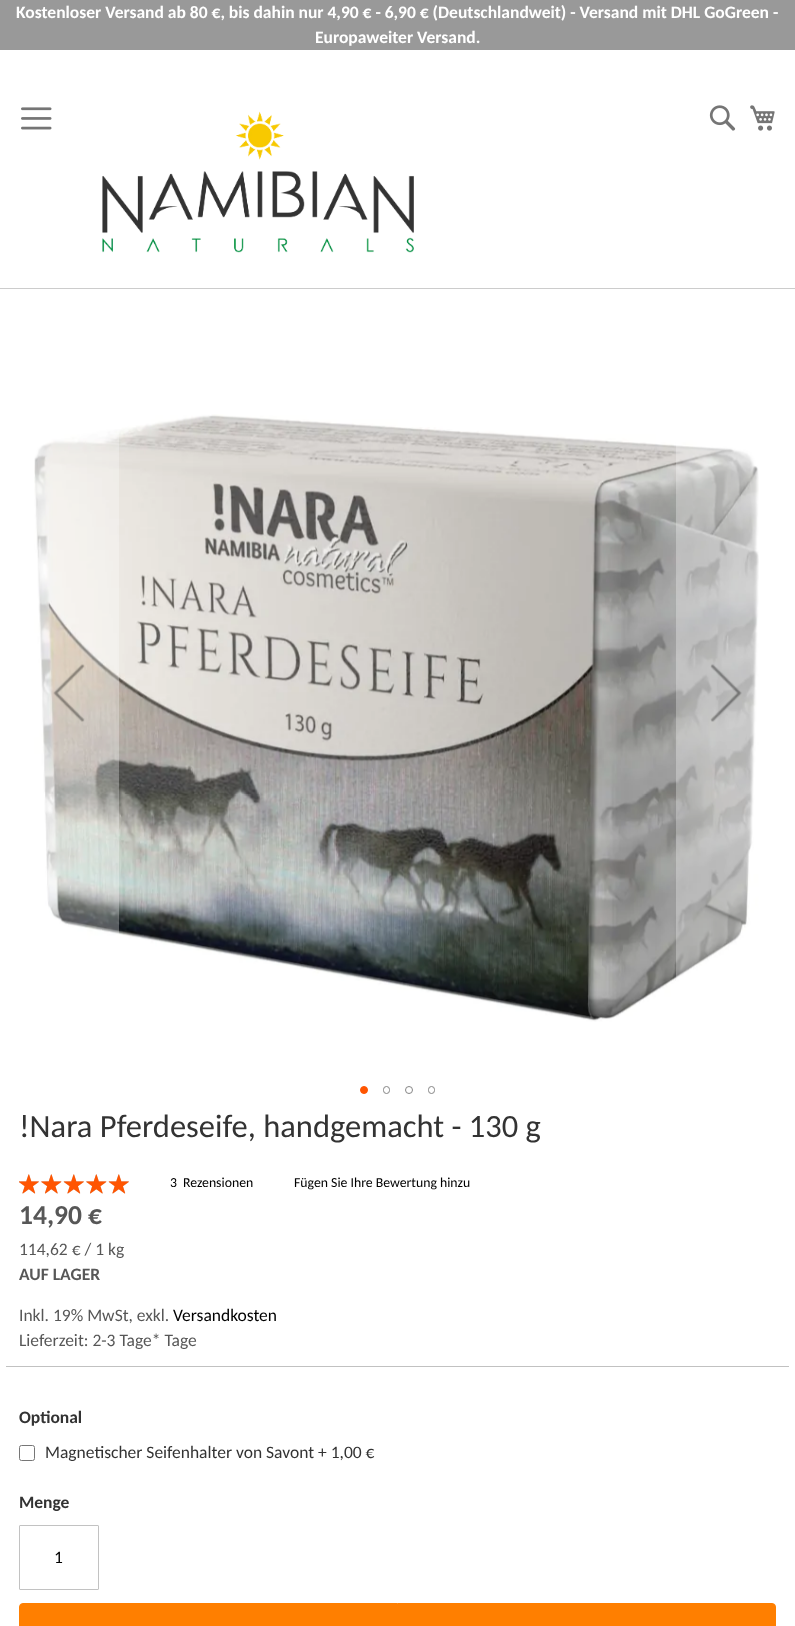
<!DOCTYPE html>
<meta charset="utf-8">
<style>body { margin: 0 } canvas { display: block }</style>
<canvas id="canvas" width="795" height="1626"></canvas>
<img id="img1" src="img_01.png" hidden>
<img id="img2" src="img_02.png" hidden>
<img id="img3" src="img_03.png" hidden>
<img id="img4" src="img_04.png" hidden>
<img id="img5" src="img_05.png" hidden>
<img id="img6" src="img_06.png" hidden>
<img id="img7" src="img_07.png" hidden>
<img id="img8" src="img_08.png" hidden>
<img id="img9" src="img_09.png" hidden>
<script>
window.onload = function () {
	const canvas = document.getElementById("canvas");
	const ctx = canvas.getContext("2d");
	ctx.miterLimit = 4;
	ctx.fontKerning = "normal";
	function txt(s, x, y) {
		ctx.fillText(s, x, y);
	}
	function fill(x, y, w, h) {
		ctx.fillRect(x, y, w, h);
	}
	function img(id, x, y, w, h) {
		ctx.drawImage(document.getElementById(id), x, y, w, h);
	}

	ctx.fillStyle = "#FFFFFF";
	fill(0, 0, 795, 1626);
	ctx.fillStyle = "#999999";
	fill(0, 0, 795, 50);
	ctx.fillStyle = "#CCCCCC";
	fill(0, 288, 795, 1);
	img("img1", 21, 107, 31, 23);
	img("img2", 102, 111, 312, 142);
	img("img3", 709, 105, 27, 26);
	img("img4", 750, 105, 25, 26);
	img("img5", 34, 414, 725, 608);
	ctx.fillStyle = "rgba(255, 255, 255, 0.3)";
	fill(34, 433, 85, 501);
	img("img6", 53, 664, 32, 58);
	fill(676, 445, 83, 533);
	img("img7", 710, 664, 32, 58);
	ctx.fillStyle = "#FF5501";
	ctx.beginPath();
	ctx.arc(364, 1090, 3.5, 0, Math.PI * 2);
	ctx.fill();
	ctx.strokeStyle = "#FF5501";
	ctx.stroke();
	ctx.beginPath();
	ctx.roundRect(383.5, 1086.5, 6, 7, 3);
	ctx.strokeStyle = "#858585";
	ctx.stroke();
	ctx.beginPath();
	ctx.arc(409, 1090, 3.5, 0, Math.PI * 2);
	ctx.stroke();
	ctx.beginPath();
	ctx.roundRect(428.5, 1086.5, 6, 7, 3);
	ctx.stroke();
	img("img8", 19, 1174, 110, 20);
	img("img9", 19, 1174, 110, 20);
	ctx.fillStyle = "#C1C1C1";
	fill(6, 1366, 783, 1);
	ctx.beginPath();
	ctx.roundRect(19.5, 1445.5, 15, 15, 2);
	ctx.strokeStyle = "#767676";
	ctx.stroke();
	ctx.beginPath();
	ctx.roundRect(19.5, 1525.5, 79, 64, 0.5);
	ctx.strokeStyle = "#C2C2C2";
	ctx.stroke();
	ctx.fillStyle = "#FF7F00";
	ctx.beginPath();
	ctx.roundRect(19.5, 1603.5, 756, 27, 3.5);
	ctx.fill();
	ctx.strokeStyle = "#FF7F00";
	ctx.stroke();
	ctx.font = "bold 17.5px Carlito";
	ctx.fillStyle = "#FFFFFF";
	txt("Kostenloser Versand ab 80 €, bis dahin nur 4,90 € - 6,90 € (Deutschlandweit) - Versand mit DHL GoGreen -", 16, 18);
	txt("Europaweiter Versand.", 315, 43);
	ctx.font = "32.5px Carlito";
	ctx.fillStyle = "#333333";
	txt("!Nara Pferdeseife, handgemacht - 130 g", 19, 1137);
	ctx.font = "13.75px Carlito";
	ctx.fillStyle = "#000000";
	txt("3", 170, 1187);
	txt("Rezensionen", 183, 1187);
	txt("Fügen Sie Ihre Bewertung hinzu", 294, 1187);
	ctx.font = "bold 27.5px Carlito";
	ctx.fillStyle = "#575757";
	txt("14,90 €", 19, 1224);
	ctx.font = "17.5px Carlito";
	txt("114,62 € / 1 kg", 19, 1255);
	ctx.font = "bold 17.5px Carlito";
	txt("AUF LAGER", 19, 1280);
	ctx.font = "17.5px Carlito";
	txt("Inkl. 19% MwSt, exkl.", 19, 1321);
	ctx.fillStyle = "#000000";
	txt("Versandkosten", 173, 1321);
	ctx.fillStyle = "#575757";
	txt("Lieferzeit: 2-3 Tage* Tage", 19, 1346);
	ctx.font = "bold 17.5px Carlito";
	ctx.fillStyle = "#333333";
	txt("Optional", 19, 1423);
	ctx.font = "17.5px Carlito";
	txt("Magnetischer Seifenhalter von Savont + 1,00 €", 45, 1458);
	ctx.font = "bold 17.5px Carlito";
	txt("Menge", 19, 1508);
	ctx.font = "17.5px Carlito";
	ctx.fillStyle = "#000000";
	txt("1", 54, 1563);
};
</script>
